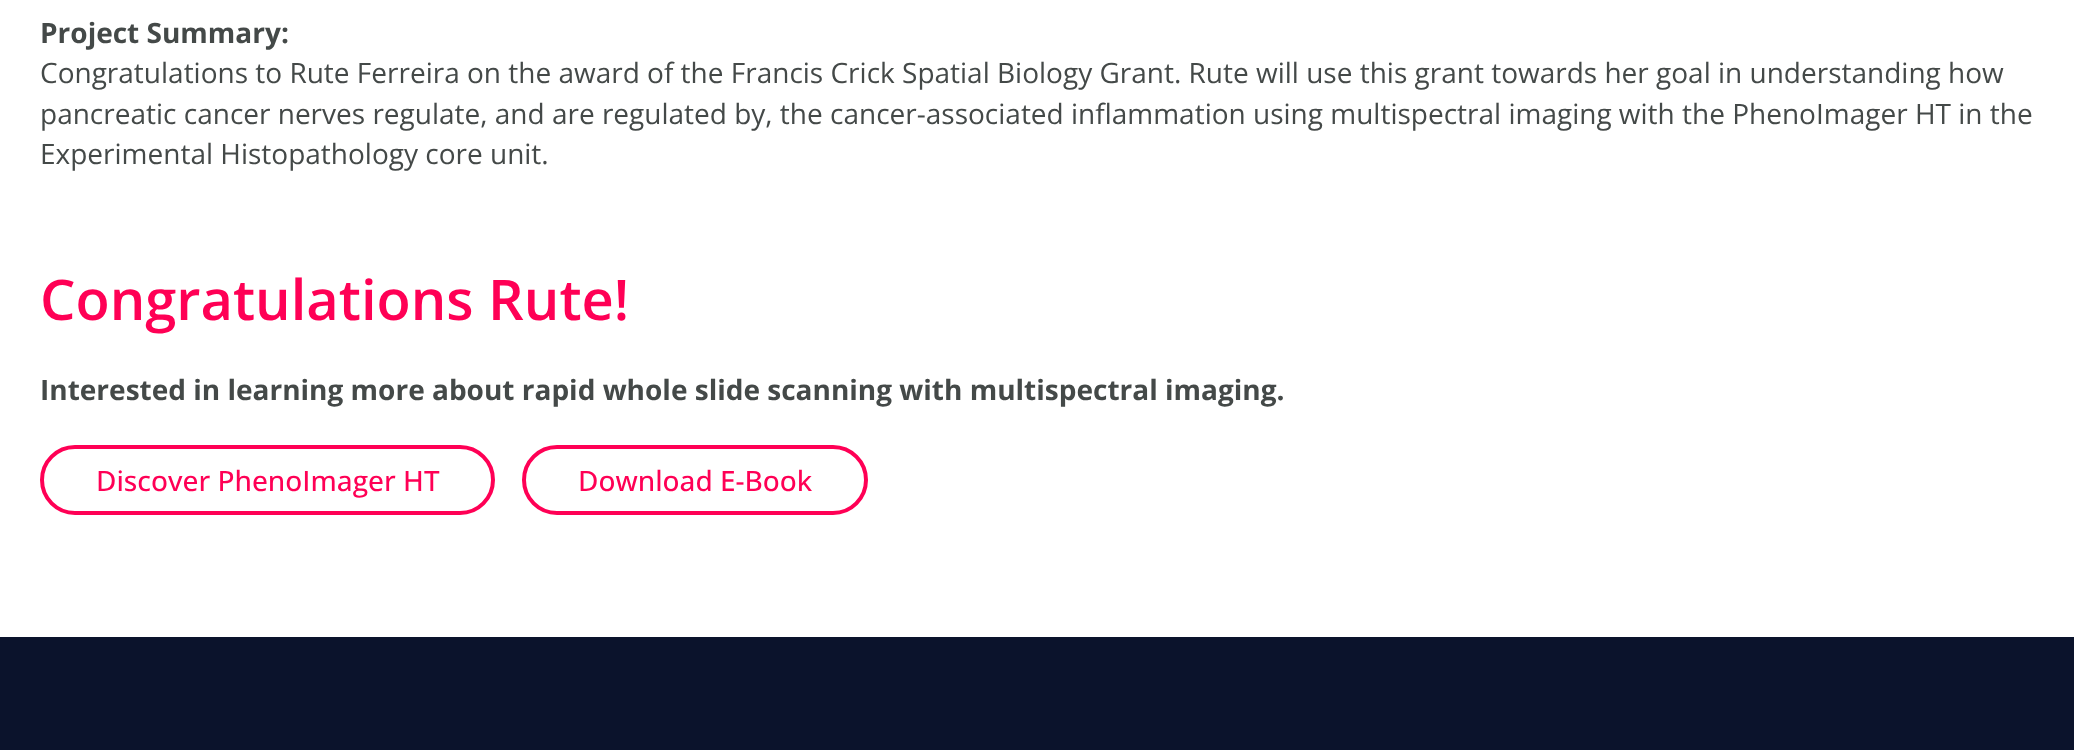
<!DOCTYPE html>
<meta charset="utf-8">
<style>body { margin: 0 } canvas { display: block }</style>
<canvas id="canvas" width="2074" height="750"></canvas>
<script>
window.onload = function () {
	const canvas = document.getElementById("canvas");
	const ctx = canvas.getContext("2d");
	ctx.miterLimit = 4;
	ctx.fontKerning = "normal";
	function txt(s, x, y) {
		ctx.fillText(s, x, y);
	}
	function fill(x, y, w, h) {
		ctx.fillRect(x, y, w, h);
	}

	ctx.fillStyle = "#FFFFFF";
	fill(0, 0, 2074, 750);
	ctx.beginPath();
	ctx.roundRect(42, 447, 451, 66, 33);
	ctx.strokeStyle = "#FF0055";
	ctx.lineWidth = 4;
	ctx.stroke();
	ctx.beginPath();
	ctx.roundRect(524, 447, 342, 66, 33);
	ctx.stroke();
	ctx.fillStyle = "#0B132C";
	fill(0, 637, 2074, 113);
	ctx.font = "bold 28px Open Sans";
	ctx.fillStyle = "#444948";
	txt("Project Summary:", 40, 43);
	ctx.font = "28px Open Sans";
	txt("Congratulations to Rute Ferreira on the award of the Francis Crick Spatial Biology Grant. Rute will use this grant towards her goal in understanding how", 40, 83);
	txt("pancreatic cancer nerves regulate, and are regulated by, the cancer-associated inflammation using multispectral imaging with the PhenoImager HT in the", 40, 124);
	txt("Experimental Histopathology core unit.", 40, 164);
	ctx.font = "600 56px Open Sans";
	ctx.fillStyle = "#FF0055";
	txt("Congratulations Rute!", 40, 320);
	ctx.font = "bold 28px Open Sans";
	ctx.fillStyle = "#444948";
	txt("Interested in learning more about rapid whole slide scanning with multispectral imaging.", 40, 400);
	ctx.font = "500 28px Open Sans";
	ctx.fillStyle = "#FF0055";
	txt("Discover PhenoImager HT", 96, 491);
	txt("Download E-Book", 578, 491);
};
</script>
